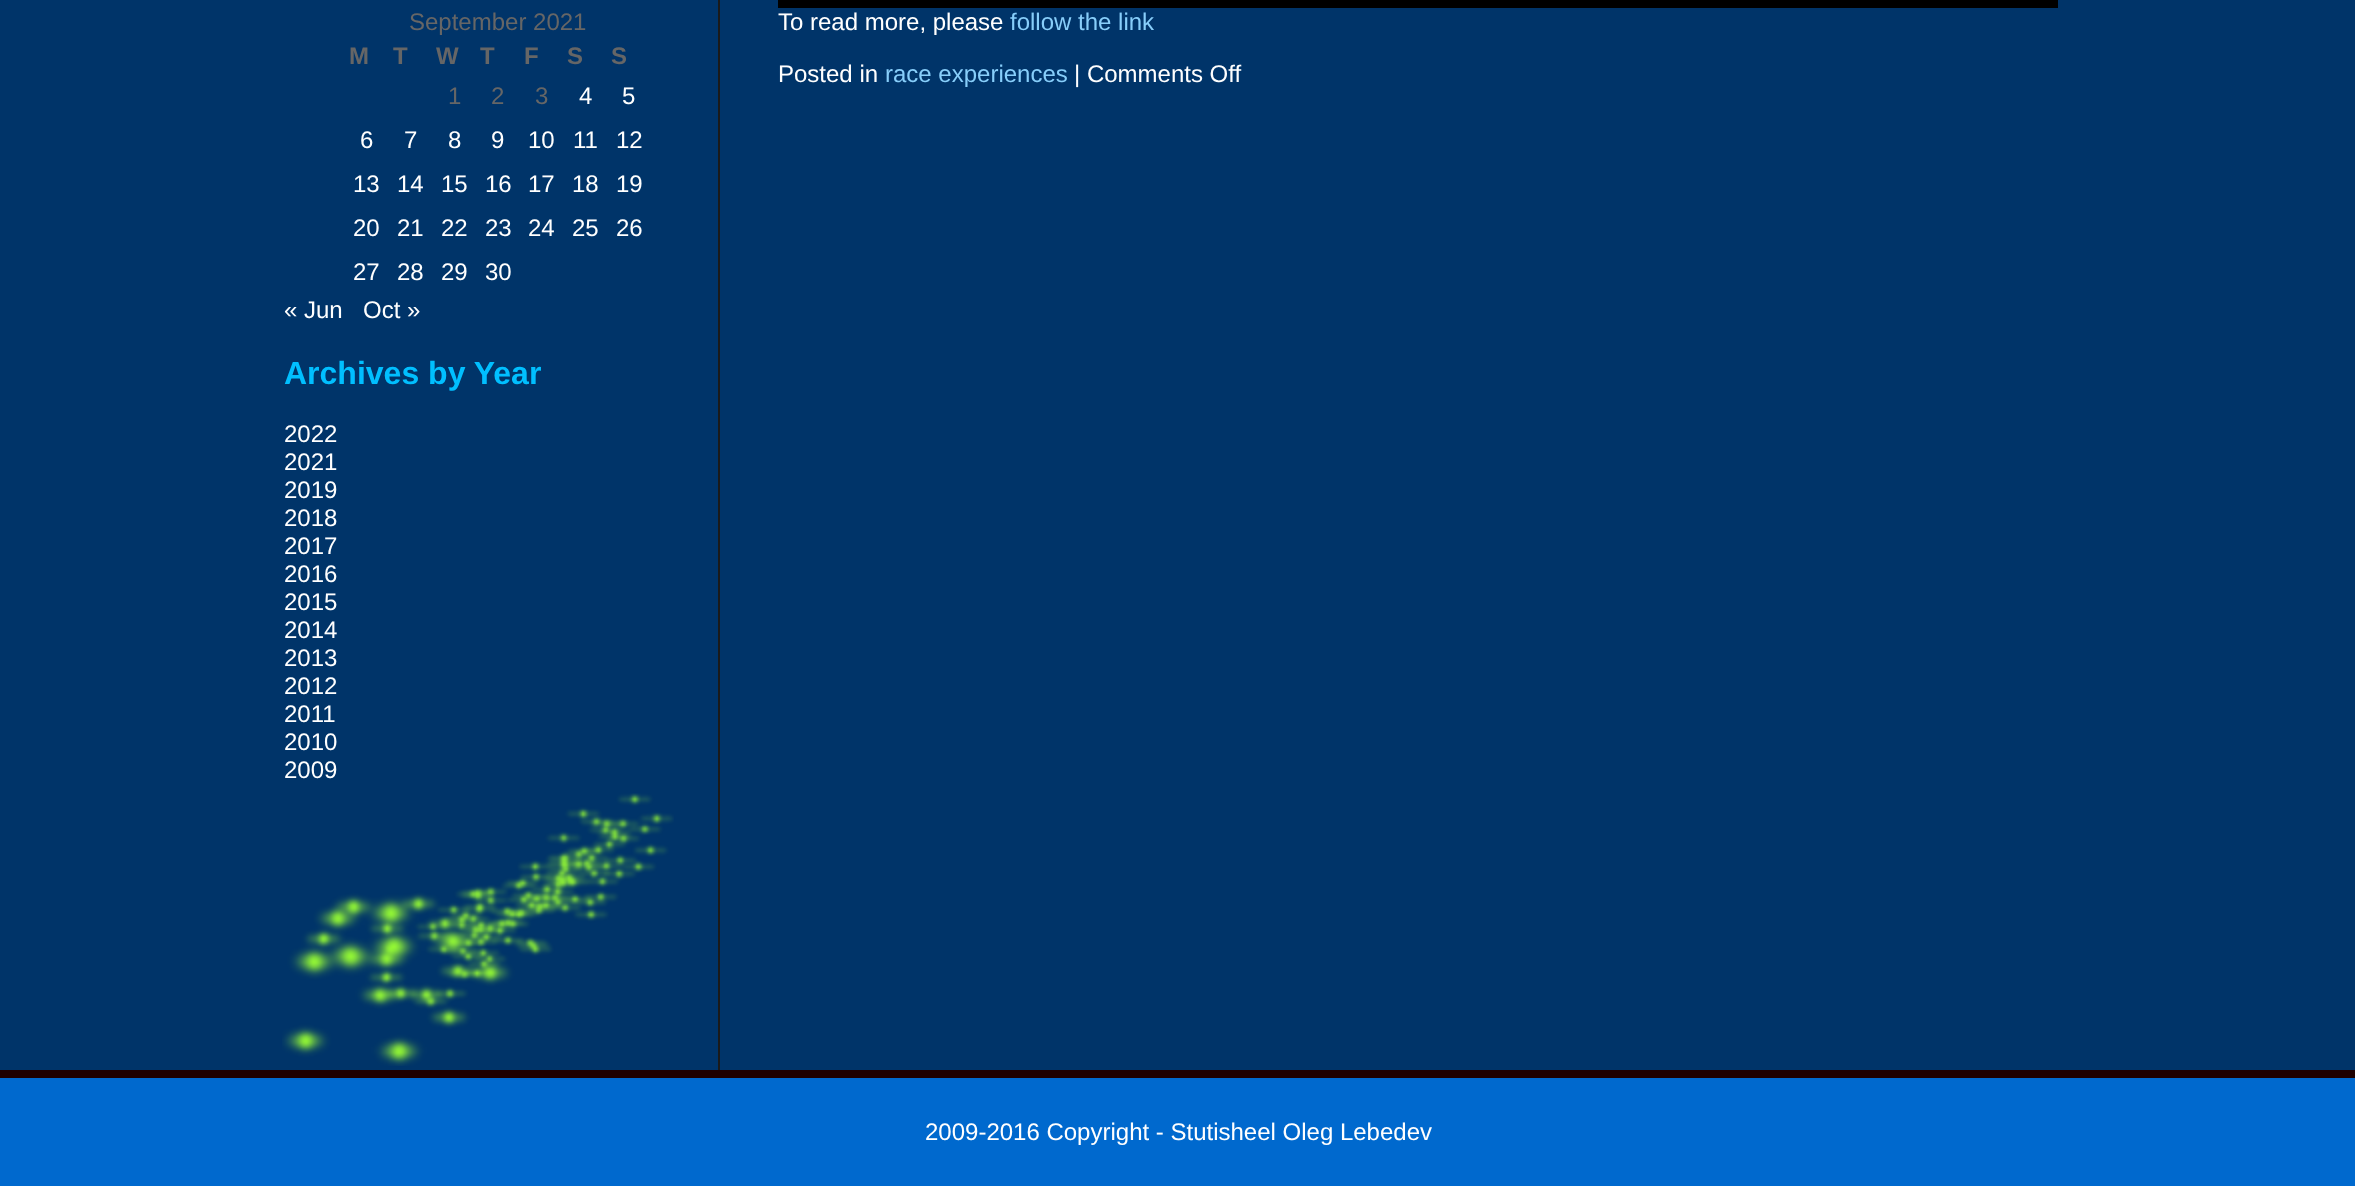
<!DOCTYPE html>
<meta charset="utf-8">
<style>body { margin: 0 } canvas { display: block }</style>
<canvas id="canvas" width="2355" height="1186"></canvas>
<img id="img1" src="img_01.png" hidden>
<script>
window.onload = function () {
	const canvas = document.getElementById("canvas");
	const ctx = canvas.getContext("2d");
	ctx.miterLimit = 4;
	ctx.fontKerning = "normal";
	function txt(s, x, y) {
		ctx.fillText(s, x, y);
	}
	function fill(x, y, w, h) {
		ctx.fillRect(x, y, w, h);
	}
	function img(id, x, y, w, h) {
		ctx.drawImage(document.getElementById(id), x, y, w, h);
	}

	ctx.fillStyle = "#003469";
	fill(0, 0, 2355, 1186);
	ctx.fillStyle = "#1A1A1A";
	fill(718, 0, 2, 1070);
	img("img1", 282, 793, 392, 273);
	ctx.fillStyle = "#000000";
	fill(778, 0, 1280, 8);
	ctx.fillStyle = "#0069CE";
	fill(0, 1078, 2355, 108);
	ctx.fillStyle = "#1E0000";
	fill(0, 1070, 2355, 8);
	ctx.font = "24px Liberation Sans";
	ctx.fillStyle = "#666666";
	txt("September 2021", 409, 30);
	ctx.font = "bold 24px Liberation Sans";
	txt("M", 349, 64);
	txt("T", 393, 64);
	txt("W", 436, 64);
	txt("T", 480, 64);
	txt("F", 524, 64);
	txt("S", 567, 64);
	txt("S", 611, 64);
	ctx.font = "24px Liberation Sans";
	txt("1", 448, 104);
	txt("2", 491, 104);
	txt("3", 535, 104);
	ctx.fillStyle = "#FFFFFF";
	txt("4", 579, 104);
	txt("5", 622, 104);
	txt("6", 360, 148);
	txt("7", 404, 148);
	txt("8", 448, 148);
	txt("9", 491, 148);
	txt("10", 528, 148);
	txt("11", 573, 148);
	txt("12", 616, 148);
	txt("13", 353, 192);
	txt("14", 397, 192);
	txt("15", 441, 192);
	txt("16", 485, 192);
	txt("17", 528, 192);
	txt("18", 572, 192);
	txt("19", 616, 192);
	txt("20", 353, 236);
	txt("21", 397, 236);
	txt("22", 441, 236);
	txt("23", 485, 236);
	txt("24", 528, 236);
	txt("25", 572, 236);
	txt("26", 616, 236);
	txt("27", 353, 280);
	txt("28", 397, 280);
	txt("29", 441, 280);
	txt("30", 485, 280);
	txt("« Jun", 284, 318);
	txt("Oct »", 363, 318);
	ctx.font = "bold 32px Liberation Sans";
	ctx.fillStyle = "#00BFFF";
	txt("Archives by Year", 284, 384);
	ctx.font = "24px Liberation Sans";
	ctx.fillStyle = "#FFFFFF";
	txt("2022", 284, 442);
	txt("2021", 284, 470);
	txt("2019", 284, 498);
	txt("2018", 284, 526);
	txt("2017", 284, 554);
	txt("2016", 284, 582);
	txt("2015", 284, 610);
	txt("2014", 284, 638);
	txt("2013", 284, 666);
	txt("2012", 284, 694);
	txt("2011", 284, 722);
	txt("2010", 284, 750);
	txt("2009", 284, 778);
	txt("To read more, please", 778, 30);
	ctx.fillStyle = "#87CEFA";
	txt("follow the link", 1010, 30);
	ctx.fillStyle = "#FFFFFF";
	txt("Posted in", 778, 82);
	ctx.fillStyle = "#87CEFA";
	txt("race experiences", 885, 82);
	ctx.fillStyle = "#FFFFFF";
	txt("| Comments Off", 1074, 82);
	txt("2009-2016 Copyright - Stutisheel Oleg Lebedev", 925, 1140);
};
</script>
